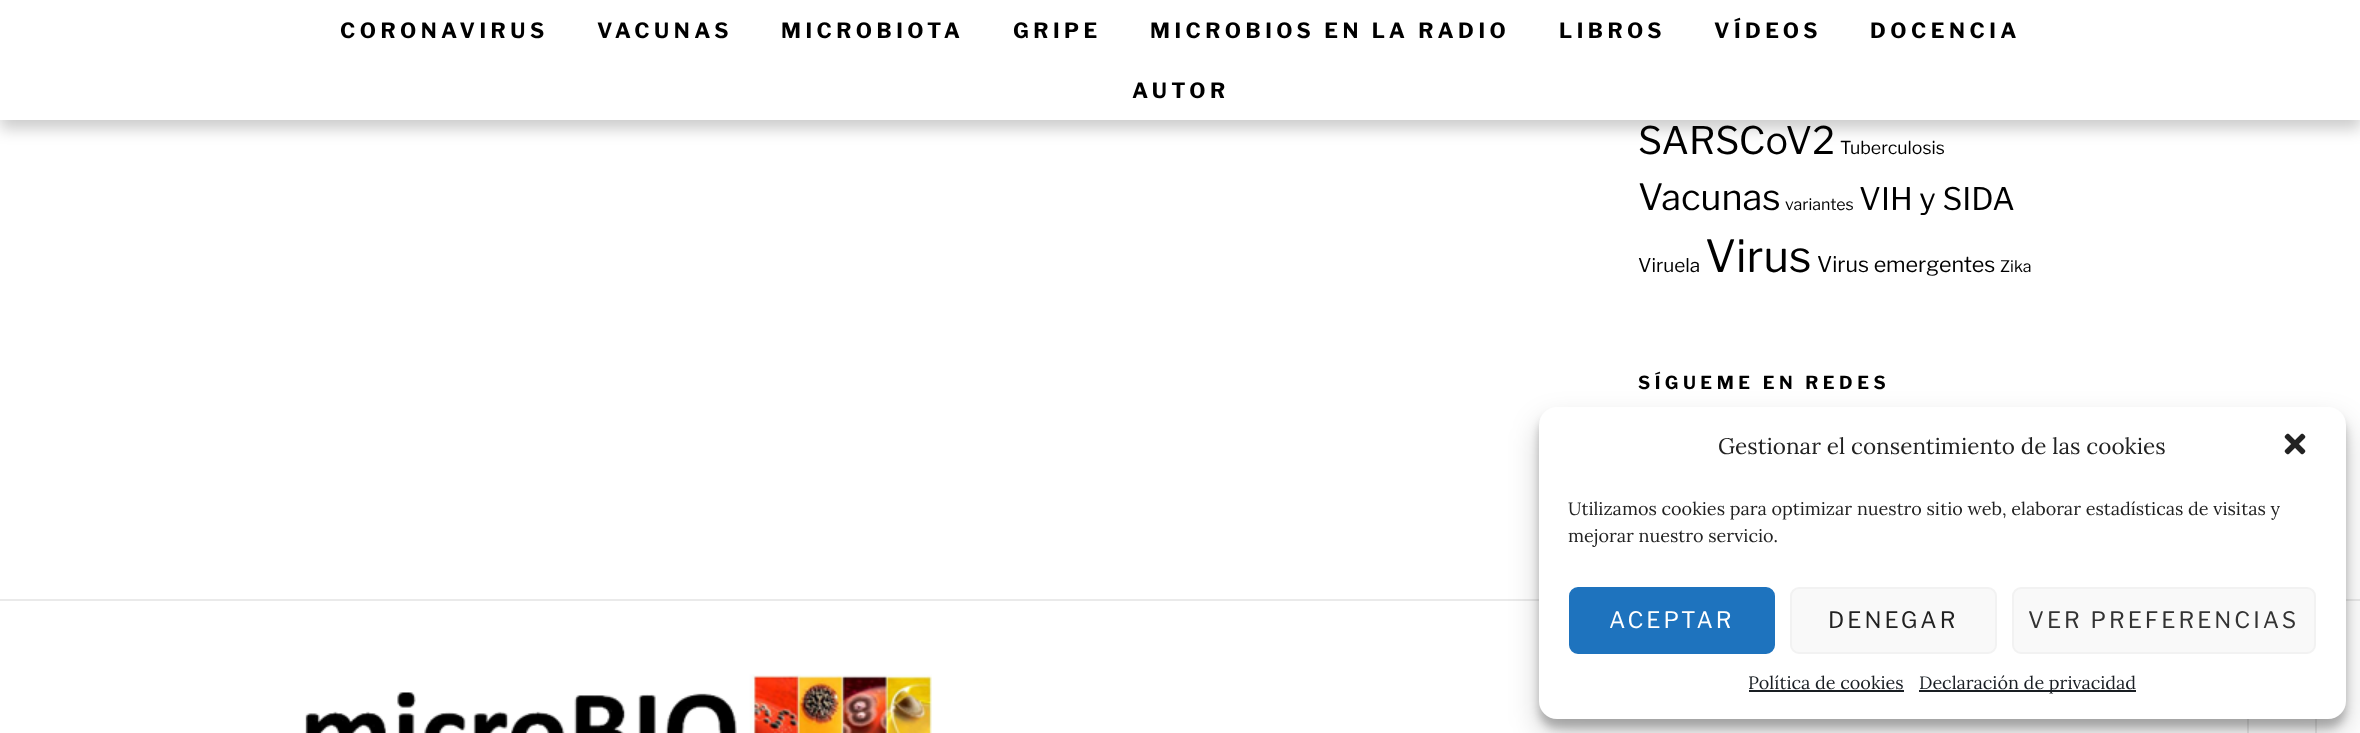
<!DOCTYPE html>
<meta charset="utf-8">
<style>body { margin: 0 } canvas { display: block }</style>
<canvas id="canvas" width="2360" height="733"></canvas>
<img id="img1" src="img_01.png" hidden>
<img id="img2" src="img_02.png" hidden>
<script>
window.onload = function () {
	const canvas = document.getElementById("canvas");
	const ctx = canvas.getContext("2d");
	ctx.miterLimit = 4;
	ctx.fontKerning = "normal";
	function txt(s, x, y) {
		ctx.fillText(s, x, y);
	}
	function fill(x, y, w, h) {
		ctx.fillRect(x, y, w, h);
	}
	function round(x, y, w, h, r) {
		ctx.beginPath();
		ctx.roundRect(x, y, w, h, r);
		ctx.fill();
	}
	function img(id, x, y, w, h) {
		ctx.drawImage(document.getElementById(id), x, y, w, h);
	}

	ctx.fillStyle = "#FFFFFF";
	fill(0, 0, 2360, 733);
	ctx.fillStyle = "rgba(0, 0, 0, 0.2)";
	ctx.filter = "blur(7.5px)";
	ctx.beginPath();
	ctx.rect(0, 8, 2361, 121);
	ctx.fill();
	ctx.filter = "none";
	ctx.fillStyle = "#FFFFFF";
	fill(0, 0, 2360, 120);
	ctx.fillStyle = "#EAEAEA";
	fill(0, 599, 2360, 2);
	img("img1", 305, 674, 627, 59);
	fill(2315, 719, 2, 14);
	fill(2247, 719, 2, 14);
	ctx.fillStyle = "rgba(0, 0, 0, 0.23)";
	ctx.filter = "blur(4.5px)";
	ctx.beginPath();
	ctx.roundRect(1539, 416, 807, 312, 18);
	ctx.fill();
	ctx.filter = "none";
	ctx.fillStyle = "rgba(0, 0, 0, 0.19)";
	ctx.filter = "blur(15px)";
	ctx.beginPath();
	ctx.roundRect(1539, 422, 807, 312, 18);
	ctx.fill();
	ctx.filter = "none";
	ctx.fillStyle = "#FFFFFF";
	round(1539, 407, 807, 312, 18);
	img("img2", 2284, 433, 22, 22);
	ctx.fillStyle = "#1E73BE";
	ctx.beginPath();
	ctx.roundRect(1570, 588, 204, 65, 8);
	ctx.fill();
	ctx.strokeStyle = "#1E73BE";
	ctx.lineWidth = 2;
	ctx.stroke();
	ctx.fillStyle = "#F9F9F9";
	ctx.beginPath();
	ctx.roundRect(1791, 588, 205, 65, 8);
	ctx.fill();
	ctx.strokeStyle = "#F2F2F2";
	ctx.stroke();
	ctx.beginPath();
	ctx.roundRect(2013, 588, 302, 65, 8);
	ctx.fill();
	ctx.stroke();
	ctx.fillStyle = "#191E23";
	fill(1749, 690, 155, 2);
	fill(1919, 690, 217, 2);
	ctx.letterSpacing = "4.5px";
	ctx.font = "bold 21px Libre Franklin";
	ctx.fillStyle = "#000000";
	txt("CORONAVIRUS", 340, 38);
	txt("VACUNAS", 597, 38);
	txt("MICROBIOTA", 781, 38);
	txt("GRIPE", 1013, 38);
	txt("MICROBIOS EN LA RADIO", 1150, 38);
	txt("LIBROS", 1559, 38);
	txt("VÍDEOS", 1714, 38);
	txt("DOCENCIA", 1870, 38);
	txt("AUTOR", 1132, 98);
	ctx.letterSpacing = "0px";
	ctx.font = "37.75px Libre Franklin";
	txt("SARSCoV2", 1638, 154);
	ctx.font = "17.75px Libre Franklin";
	txt("Tuberculosis", 1840, 154);
	ctx.font = "36px Libre Franklin";
	txt("Vacunas", 1638, 210);
	ctx.font = "16px Libre Franklin";
	txt("variantes", 1785, 210);
	ctx.font = "31px Libre Franklin";
	txt("VIH y SIDA", 1859, 210);
	ctx.font = "19px Libre Franklin";
	txt("Viruela", 1638, 272);
	ctx.font = "44px Libre Franklin";
	txt("Virus", 1705, 272);
	ctx.font = "21.5px Libre Franklin";
	txt("Virus emergentes", 1817, 272);
	ctx.font = "16px Libre Franklin";
	txt("Zika", 2000, 272);
	ctx.letterSpacing = "4.5px";
	ctx.font = "bold 18px Libre Franklin";
	txt("SÍGUEME EN REDES", 1638, 389);
	ctx.letterSpacing = "0px";
	ctx.font = "22.5px Lora";
	ctx.fillStyle = "#222222";
	txt("Gestionar el consentimiento de las cookies", 1718, 454);
	ctx.font = "18px Lora";
	txt("Utilizamos cookies para optimizar nuestro sitio web, elaborar estadísticas de visitas y", 1568, 515);
	txt("mejorar nuestro servicio.", 1568, 542);
	ctx.letterSpacing = "3px";
	ctx.font = "22.5px Libre Franklin";
	ctx.fillStyle = "#FFFFFF";
	txt("ACEPTAR", 1609, 628);
	ctx.fillStyle = "#222222";
	txt("DENEGAR", 1828, 628);
	ctx.fillStyle = "#333333";
	txt("VER PREFERENCIAS", 2028, 628);
	ctx.letterSpacing = "0px";
	ctx.font = "18px Lora";
	ctx.fillStyle = "#191E23";
	txt("Política de cookies", 1748, 689);
	txt("Declaración de privacidad", 1919, 689);
};
</script>
